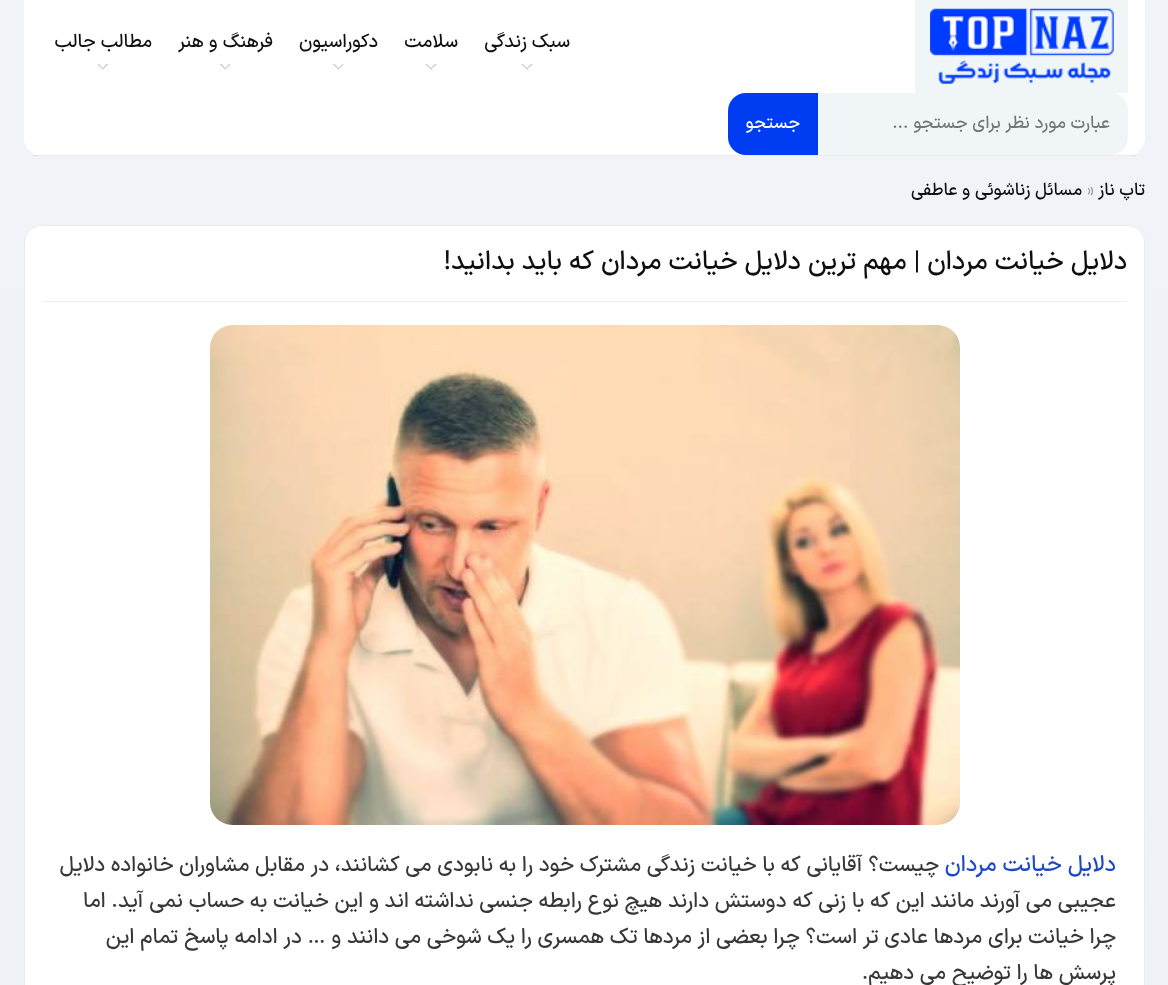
<!DOCTYPE html>
<meta charset="utf-8">
<style>body { margin: 0 } canvas { display: block }</style>
<canvas id="canvas" width="1168" height="985"></canvas>
<img id="img1" src="img_01.png" hidden>
<img id="img2" src="img_02.png" hidden>
<script>
window.onload = function () {
	const canvas = document.getElementById("canvas");
	const ctx = canvas.getContext("2d");
	ctx.miterLimit = 4;
	ctx.fontKerning = "normal";
	function txt(s, x, y) {
		ctx.fillText(s, x, y);
	}
	function fill(x, y, w, h) {
		ctx.fillRect(x, y, w, h);
	}
	function round(x, y, w, h, r) {
		ctx.beginPath();
		ctx.roundRect(x, y, w, h, r);
		ctx.fill();
	}
	function img(id, x, y, w, h) {
		ctx.drawImage(document.getElementById(id), x, y, w, h);
	}
	let gradient;

	ctx.fillStyle = "#FFFFFF";
	fill(0, 0, 1168, 985);
	gradient = ctx.createLinearGradient(584, 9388, 584, 0);
	gradient.addColorStop(0, "#EAE9F4");
	gradient.addColorStop(1, "#F0F3F7");
	ctx.fillStyle = gradient;
	fill(0, 0, 1168, 985);
	ctx.fillStyle = "#FFFFFF";
	ctx.beginPath();
	ctx.roundRect(24, 0, 1121, 156, [0, 0, 18, 18]);
	ctx.fill();
	ctx.fillStyle = "rgba(0, 0, 0, 0.08)";
	fill(33, 155, 1103, 1);
	ctx.fillStyle = "#F0F5F7";
	fill(915, 0, 213, 93);
	img("img1", 930, 8, 184, 76);
	ctx.fillStyle = "#CCCCCC";
	ctx.beginPath();
	ctx.moveTo(526, 69);
	ctx.lineTo(531.5, 63.5);
	ctx.lineTo(532.5, 64.5);
	ctx.lineTo(527, 69.5);
	ctx.closePath();
	ctx.fill();
	ctx.beginPath();
	ctx.moveTo(521.5, 64.5);
	ctx.lineTo(522.5, 63.5);
	ctx.lineTo(528, 69);
	ctx.lineTo(527, 69.5);
	ctx.closePath();
	ctx.fill();
	ctx.beginPath();
	ctx.moveTo(430, 69);
	ctx.lineTo(435.5, 63.5);
	ctx.lineTo(436.5, 64.5);
	ctx.lineTo(431, 69.5);
	ctx.closePath();
	ctx.fill();
	ctx.beginPath();
	ctx.moveTo(425.5, 64.5);
	ctx.lineTo(426.5, 63.5);
	ctx.lineTo(432, 69);
	ctx.lineTo(431, 69.5);
	ctx.closePath();
	ctx.fill();
	ctx.beginPath();
	ctx.moveTo(337.5, 69);
	ctx.lineTo(343, 63.5);
	ctx.lineTo(343.5, 64.5);
	ctx.lineTo(338.5, 69.5);
	ctx.closePath();
	ctx.fill();
	ctx.beginPath();
	ctx.moveTo(333, 64.5);
	ctx.lineTo(334, 63.5);
	ctx.lineTo(339.5, 69);
	ctx.lineTo(338.5, 69.5);
	ctx.closePath();
	ctx.fill();
	ctx.beginPath();
	ctx.moveTo(224.5, 69);
	ctx.lineTo(229.5, 63.5);
	ctx.lineTo(230.5, 64.5);
	ctx.lineTo(225, 69.5);
	ctx.closePath();
	ctx.fill();
	ctx.beginPath();
	ctx.moveTo(220, 64.5);
	ctx.lineTo(221, 63.5);
	ctx.lineTo(226, 69);
	ctx.lineTo(225, 69.5);
	ctx.closePath();
	ctx.fill();
	ctx.beginPath();
	ctx.moveTo(102, 69);
	ctx.lineTo(107, 63.5);
	ctx.lineTo(108, 64.5);
	ctx.lineTo(103, 69.5);
	ctx.closePath();
	ctx.fill();
	ctx.beginPath();
	ctx.moveTo(97.5, 64.5);
	ctx.lineTo(98.5, 63.5);
	ctx.lineTo(103.5, 69);
	ctx.lineTo(103, 69.5);
	ctx.closePath();
	ctx.fill();
	ctx.fillStyle = "#F0F5F7";
	round(728, 93, 400, 62, 18);
	ctx.fillStyle = "#003CF2";
	ctx.beginPath();
	ctx.roundRect(728, 93, 90, 62, [18, 0, 0, 18]);
	ctx.fill();
	ctx.fillStyle = "#FFFFFF";
	round(24, 225, 1121, 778, 18);
	ctx.beginPath();
	ctx.roundRect(24.5, 225.5, 1120, 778, 17.5);
	ctx.strokeStyle = "rgba(0, 0, 0, 0.08)";
	ctx.stroke();
	ctx.fillStyle = "#E9F0F4";
	fill(43, 301, 1083, 1);
	img("img2", 210, 325, 750, 500);
	ctx.direction = "rtl";
	ctx.font = "500 18.75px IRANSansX";
	ctx.fillStyle = "#0F0F0F";
	txt("سبک زندگی", 570, 47);
	txt("سلامت", 458, 47);
	txt("دکوراسیون", 378, 47);
	txt("فرهنگ و هنر", 273, 47);
	txt("مطالب جالب", 152, 47);
	ctx.font = "500 17.5px IRANSansX";
	ctx.fillStyle = "#757575";
	txt("عبارت مورد نظر برای جستجو ...", 1110, 128);
	ctx.fillStyle = "#FFFFFF";
	txt("جستجو", 800, 128);
	ctx.fillStyle = "#0F0F0F";
	txt("تاپ ناز", 1145, 195);
	ctx.direction = "ltr";
	ctx.fillStyle = "#999999";
	txt("»", 1087, 195);
	ctx.direction = "rtl";
	ctx.fillStyle = "#0F0F0F";
	txt("مسائل زناشوئی و عاطفی", 1082, 195);
	ctx.font = "500 26.25px IRANSansX";
	txt("دلایل خیانت مردان | مهم ترین دلایل خیانت مردان که باید بدانید!", 1127, 269);
	ctx.font = "500 22.5px IRANSansX";
	ctx.fillStyle = "#1D48C9";
	txt("دلایل خیانت مردان", 1116, 871);
	ctx.font = "500 21.25px IRANSansX";
	ctx.fillStyle = "#373737";
	txt("چیست؟ آقایانی که با خیانت زندگی مشترک خود را به نابودی می کشانند، در مقابل مشاوران خانواده دلایل", 939, 871);
	txt("عجیبی می آورند مانند این که با زنی که دوستش دارند هیچ نوع رابطه جنسی نداشته اند و این خیانت به حساب نمی آید. اما", 1116, 907);
	txt("چرا خیانت برای مردها عادی تر است؟ چرا بعضی از مردها تک همسری را یک شوخی می دانند و … در ادامه پاسخ تمام این", 1116, 943);
	txt("پرسش ها را توضیح می دهیم.", 1116, 979);
};
</script>
